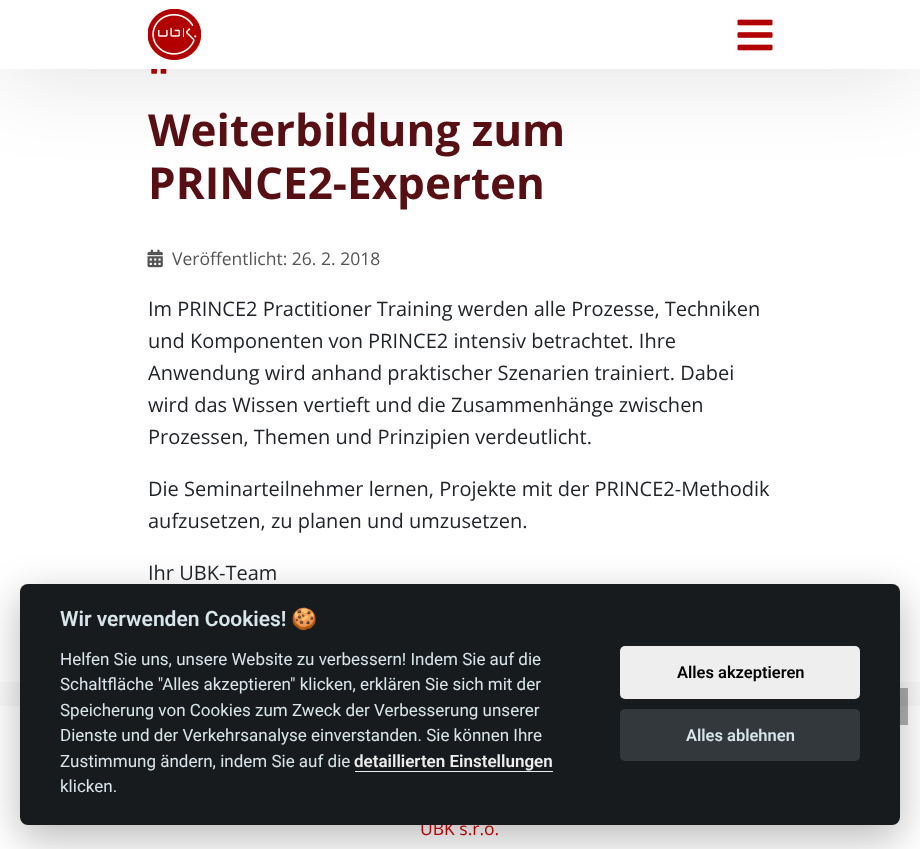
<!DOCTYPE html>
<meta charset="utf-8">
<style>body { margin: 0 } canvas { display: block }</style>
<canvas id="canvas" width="920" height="849"></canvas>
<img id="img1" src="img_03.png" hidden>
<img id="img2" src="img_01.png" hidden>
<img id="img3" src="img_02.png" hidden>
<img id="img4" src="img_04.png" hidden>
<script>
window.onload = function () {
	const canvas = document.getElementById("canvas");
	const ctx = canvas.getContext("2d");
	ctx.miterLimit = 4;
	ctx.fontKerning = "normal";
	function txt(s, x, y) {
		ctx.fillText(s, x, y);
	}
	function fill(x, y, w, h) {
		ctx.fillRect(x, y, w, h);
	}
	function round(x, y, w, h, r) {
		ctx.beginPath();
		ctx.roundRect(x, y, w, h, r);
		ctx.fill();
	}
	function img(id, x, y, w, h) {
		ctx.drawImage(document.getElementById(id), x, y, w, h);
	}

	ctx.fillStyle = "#FFFFFF";
	fill(0, 0, 920, 849);
	img("img1", 151, 69, 16, 5);
	ctx.fillStyle = "rgba(0, 0, 0, 0.14)";
	ctx.filter = "blur(45px)";
	ctx.beginPath();
	ctx.rect(0, 0, 920, 69);
	ctx.fill();
	ctx.filter = "none";
	ctx.fillStyle = "#FFFFFF";
	fill(0, 0, 920, 69);
	img("img2", 148, 9, 53, 51);
	img("img3", 737, 19, 36, 32);
	img("img4", 147, 249, 16, 19);
	ctx.save();
	ctx.beginPath();
	ctx.rect(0, 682, 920, 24);
	ctx.clip();
	ctx.fillStyle = "rgba(0, 0, 0, 0.1)";
	ctx.filter = "blur(45px)";
	ctx.beginPath();
	ctx.rect(0, 706, 920, 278);
	ctx.fill();
	ctx.filter = "none";
	ctx.restore();
	ctx.fillStyle = "rgba(0, 0, 0, 0.3)";
	fill(900, 688, 8, 37);
	ctx.fillStyle = "rgba(2, 2, 3, 0.28)";
	ctx.filter = "blur(19px)";
	ctx.beginPath();
	ctx.roundRect(20, 596, 880, 242, 8);
	ctx.fill();
	ctx.filter = "none";
	ctx.font = "bold 44px Open Sans";
	ctx.fillStyle = "#570F14";
	txt("Weiterbildung zum", 148, 146);
	txt("PRINCE2-Experten", 148, 199);
	ctx.font = "17.5px Open Sans";
	ctx.fillStyle = "#555555";
	txt("Veröffentlicht: 26. 2. 2018", 172, 265);
	ctx.font = "20px Open Sans";
	ctx.fillStyle = "#212529";
	txt("Im PRINCE2 Practitioner Training werden alle Prozesse, Techniken", 148, 316);
	txt("und Komponenten von PRINCE2 intensiv betrachtet. Ihre", 148, 348);
	txt("Anwendung wird anhand praktischer Szenarien trainiert. Dabei", 148, 380);
	txt("wird das Wissen vertieft und die Zusammenhänge zwischen", 148, 412);
	txt("Prozessen, Themen und Prinzipien verdeutlicht.", 148, 444);
	txt("Die Seminarteilnehmer lernen, Projekte mit der PRINCE2-Methodik", 148, 496);
	txt("aufzusetzen, zu planen und umzusetzen.", 148, 528);
	txt("Ihr UBK-Team", 148, 580);
	ctx.font = "17.5px Open Sans";
	ctx.fillStyle = "#B20000";
	txt("UBK s.r.o.", 420, 835);
	ctx.fillStyle = "#181B1D";
	round(20, 584, 880, 241, 8);
	ctx.fillStyle = "#EEEEEE";
	round(620, 646, 240, 53, 5);
	ctx.font = "600 16.5px Roboto";
	ctx.fillStyle = "#000000";
	txt("Alles akzeptieren", 677, 678);
	ctx.font = "17px Roboto";
	ctx.fillStyle = "#D8E5EA";
	txt("klicken.", 60, 792);
	ctx.font = "600 17px Roboto";
	ctx.fillStyle = "#EEEEEE";
	txt("detaillierten Einstellungen", 354, 767);
	fill(355, 771, 198, 1);
	ctx.font = "17px Roboto";
	ctx.fillStyle = "#D8E5EA";
	txt("Zustimmung ändern, indem Sie auf die", 60, 767);
	txt("Dienste und der Verkehrsanalyse einverstanden. Sie können Ihre", 60, 741);
	txt("Speicherung von Cookies zum Zweck der Verbesserung unserer", 60, 716);
	txt("Schaltfläche \"Alles akzeptieren\" klicken, erklären Sie sich mit der", 60, 690);
	txt("Helfen Sie uns, unsere Website zu verbessern! Indem Sie auf die", 60, 665);
	ctx.font = "bold 21px Noto Color Emoji";
	txt("🍪", 291, 626);
	ctx.font = "600 21px Roboto";
	txt("Wir verwenden Cookies!", 60, 626);
	ctx.fillStyle = "#33383C";
	round(620, 709, 240, 52, 5);
	ctx.font = "600 16.5px Roboto";
	ctx.fillStyle = "#D8E5EA";
	txt("Alles ablehnen", 686, 741);
};
</script>
